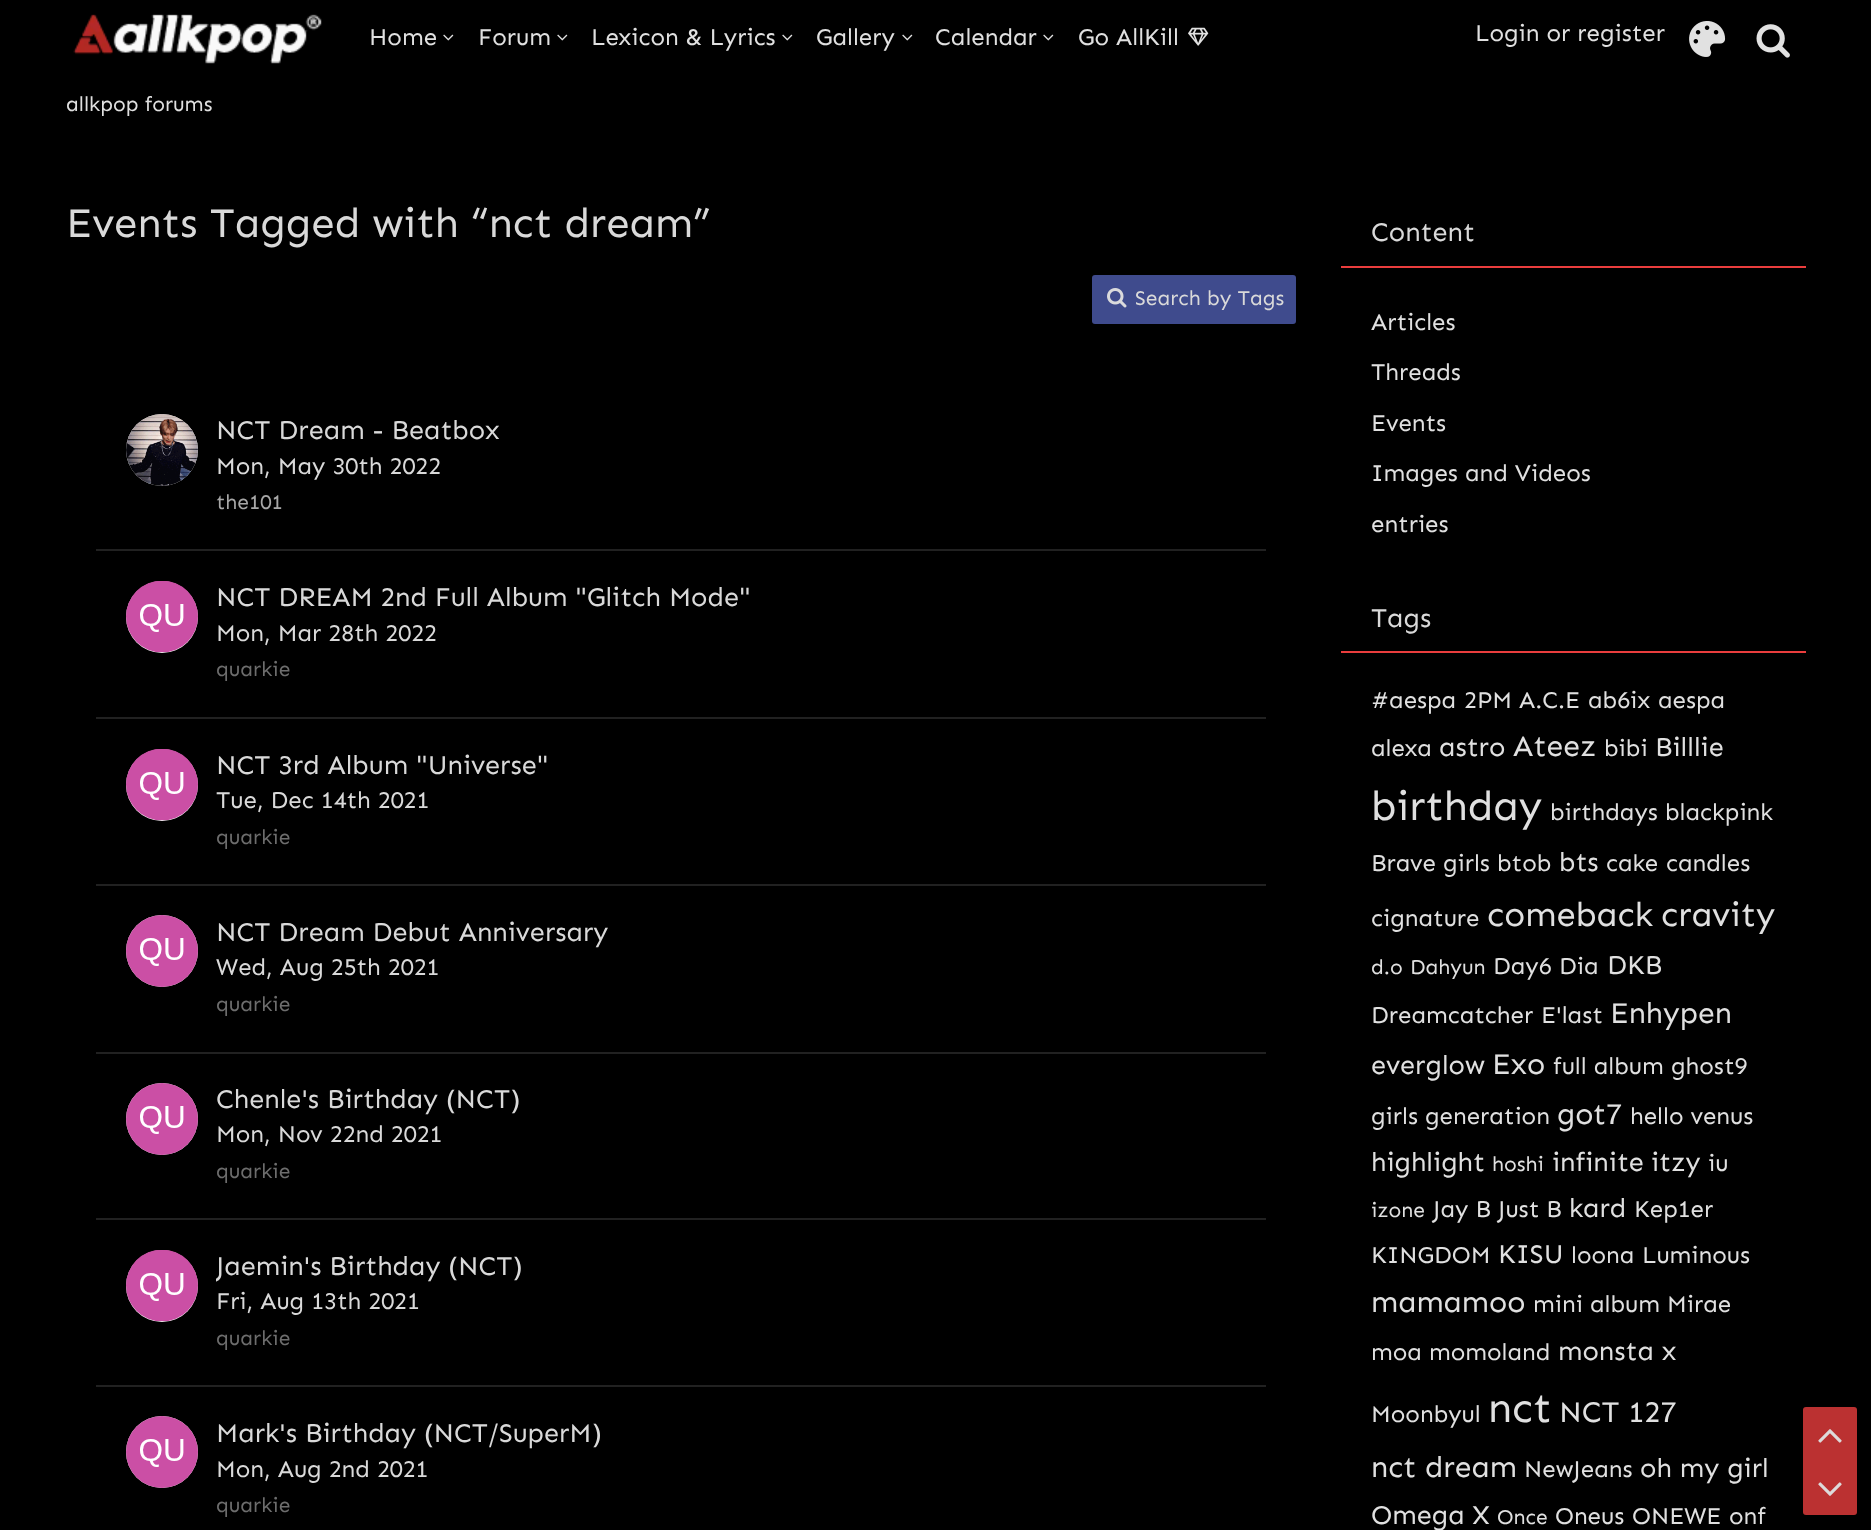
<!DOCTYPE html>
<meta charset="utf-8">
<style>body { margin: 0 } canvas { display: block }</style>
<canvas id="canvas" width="1871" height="1530"></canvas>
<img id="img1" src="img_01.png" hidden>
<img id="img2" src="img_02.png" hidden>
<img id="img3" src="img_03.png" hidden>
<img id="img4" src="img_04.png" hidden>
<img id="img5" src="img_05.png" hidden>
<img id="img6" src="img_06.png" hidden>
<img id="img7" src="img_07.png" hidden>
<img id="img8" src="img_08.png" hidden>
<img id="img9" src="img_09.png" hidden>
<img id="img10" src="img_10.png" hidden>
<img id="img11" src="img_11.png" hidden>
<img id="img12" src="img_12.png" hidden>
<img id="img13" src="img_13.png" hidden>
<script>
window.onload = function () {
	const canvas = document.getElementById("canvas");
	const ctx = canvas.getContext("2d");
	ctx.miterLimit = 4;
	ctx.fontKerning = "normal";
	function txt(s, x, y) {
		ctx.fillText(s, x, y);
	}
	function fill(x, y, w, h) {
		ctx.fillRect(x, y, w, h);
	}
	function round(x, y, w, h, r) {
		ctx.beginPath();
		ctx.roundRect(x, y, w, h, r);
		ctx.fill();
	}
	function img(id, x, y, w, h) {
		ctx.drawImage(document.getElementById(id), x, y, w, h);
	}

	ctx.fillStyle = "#000000";
	fill(0, 0, 1871, 1530);
	img("img1", 73, 14, 249, 50);
	img("img2", 443, 34, 11, 7);
	img("img2", 557, 34, 11, 7);
	img("img2", 782, 34, 11, 7);
	img("img2", 902, 34, 11, 7);
	img("img2", 1043, 34, 11, 7);
	img("img3", 1188, 27, 21, 19);
	img("img4", 1689, 21, 37, 36);
	img("img5", 1756, 24, 34, 34);
	ctx.fillStyle = "#BB3131";
	ctx.beginPath();
	ctx.roundRect(1803, 1407, 54, 54, [3, 3, 0, 0]);
	ctx.fill();
	img("img6", 1818, 1429, 24, 14);
	ctx.beginPath();
	ctx.roundRect(1803, 1461, 54, 54, [0, 0, 3, 3]);
	ctx.fill();
	img("img7", 1818, 1482, 24, 14);
	ctx.fillStyle = "#3F4B8D";
	round(1092, 275, 204, 49, 3);
	img("img8", 1107, 288, 20, 20);
	ctx.fillStyle = "#212121";
	fill(96, 549, 1170, 2);
	ctx.fillStyle = "#FAFAFA";
	ctx.beginPath();
	ctx.arc(162, 450, 36, 0, Math.PI * 2);
	ctx.fill();
	img("img9", 126, 414, 72, 72);
	ctx.fillStyle = "#212121";
	fill(96, 717, 1170, 2);
	ctx.fillStyle = "#FAFAFA";
	ctx.beginPath();
	ctx.arc(162, 617, 36, 0, Math.PI * 2);
	ctx.fill();
	img("img10", 126, 581, 72, 72);
	ctx.fillStyle = "#212121";
	fill(96, 884, 1170, 2);
	ctx.fillStyle = "#FAFAFA";
	ctx.beginPath();
	ctx.arc(162, 785, 36, 0, Math.PI * 2);
	ctx.fill();
	img("img10", 126, 749, 72, 72);
	ctx.fillStyle = "#212121";
	fill(96, 1052, 1170, 2);
	ctx.fillStyle = "#FAFAFA";
	ctx.beginPath();
	ctx.arc(162, 951, 36, 0, Math.PI * 2);
	ctx.fill();
	img("img11", 126, 915, 72, 72);
	ctx.fillStyle = "#212121";
	fill(96, 1218, 1170, 2);
	ctx.fillStyle = "#FAFAFA";
	ctx.beginPath();
	ctx.arc(162, 1119, 36, 0, Math.PI * 2);
	ctx.fill();
	img("img12", 126, 1083, 72, 72);
	ctx.fillStyle = "#212121";
	fill(96, 1385, 1170, 2);
	ctx.fillStyle = "#FAFAFA";
	ctx.beginPath();
	ctx.arc(162, 1286, 36, 0, Math.PI * 2);
	ctx.fill();
	img("img10", 126, 1250, 72, 72);
	ctx.beginPath();
	ctx.arc(162, 1452, 36, 0, Math.PI * 2);
	ctx.fill();
	img("img13", 126, 1416, 72, 72);
	ctx.fillStyle = "#EA3D3D";
	fill(1341, 266, 465, 2);
	fill(1341, 651, 465, 2);
	ctx.font = "24px Sen";
	ctx.fillStyle = "#E0E0E0";
	txt("Home", 369, 45);
	txt("Forum", 478, 45);
	txt("Lexicon & Lyrics", 591, 45);
	txt("Gallery", 816, 45);
	txt("Calendar", 935, 45);
	txt("Go AllKill", 1078, 45);
	txt("Login or register", 1475, 41);
	ctx.font = "21px Sen";
	txt("allkpop forums", 66, 111);
	ctx.font = "42px Sen";
	ctx.fillStyle = "#D9D9D9";
	txt("Events Tagged with “nct dream”", 66, 237);
	ctx.font = "21px Sen";
	txt("Search by Tags", 1135, 305);
	ctx.font = "27px Sen";
	txt("NCT Dream - Beatbox", 216, 439);
	ctx.font = "24px Sen";
	txt("Mon, May 30th 2022", 216, 474);
	ctx.font = "21px Sen";
	ctx.fillStyle = "#A7A7A7";
	txt("the101", 216, 509);
	ctx.font = "27px Sen";
	ctx.fillStyle = "#D9D9D9";
	txt("NCT DREAM 2nd Full Album \"Glitch Mode\"", 216, 606);
	ctx.font = "24px Sen";
	txt("Mon, Mar 28th 2022", 216, 641);
	ctx.font = "21px Sen";
	ctx.fillStyle = "#6D6D6D";
	txt("quarkie", 216, 676);
	ctx.font = "27px Sen";
	ctx.fillStyle = "#D9D9D9";
	txt("NCT 3rd Album \"Universe\"", 216, 774);
	ctx.font = "24px Sen";
	txt("Tue, Dec 14th 2021", 216, 808);
	ctx.font = "21px Sen";
	ctx.fillStyle = "#6D6D6D";
	txt("quarkie", 216, 844);
	ctx.font = "27px Sen";
	ctx.fillStyle = "#D9D9D9";
	txt("NCT Dream Debut Anniversary", 216, 941);
	ctx.font = "24px Sen";
	txt("Wed, Aug 25th 2021", 216, 975);
	ctx.font = "21px Sen";
	ctx.fillStyle = "#6D6D6D";
	txt("quarkie", 216, 1011);
	ctx.font = "27px Sen";
	ctx.fillStyle = "#D9D9D9";
	txt("Chenle's Birthday (NCT)", 216, 1108);
	ctx.font = "24px Sen";
	txt("Mon, Nov 22nd 2021", 216, 1142);
	ctx.font = "21px Sen";
	ctx.fillStyle = "#6D6D6D";
	txt("quarkie", 216, 1178);
	ctx.save();
	ctx.beginPath();
	ctx.rect(216, 1250, 1020, 105);
	ctx.clip();
	ctx.font = "27px Sen";
	ctx.fillStyle = "#D9D9D9";
	txt("Jaemin's Birthday (NCT)", 216, 1275);
	ctx.restore();
	ctx.font = "24px Sen";
	ctx.fillStyle = "#D9D9D9";
	txt("Fri, Aug 13th 2021", 216, 1309);
	ctx.font = "21px Sen";
	ctx.fillStyle = "#6D6D6D";
	txt("quarkie", 216, 1345);
	ctx.font = "27px Sen";
	ctx.fillStyle = "#D9D9D9";
	txt("Mark's Birthday (NCT/SuperM)", 216, 1442);
	ctx.font = "24px Sen";
	txt("Mon, Aug 2nd 2021", 216, 1477);
	ctx.font = "21px Sen";
	ctx.fillStyle = "#6D6D6D";
	txt("quarkie", 216, 1512);
	ctx.font = "27px Sen";
	ctx.fillStyle = "#D9D9D9";
	txt("Content", 1371, 241);
	ctx.font = "24px Sen";
	ctx.fillStyle = "#E0E0E0";
	txt("Articles", 1371, 330);
	txt("Threads", 1371, 380);
	txt("Events", 1371, 431);
	txt("Images and Videos", 1371, 481);
	txt("entries", 1371, 532);
	ctx.font = "27px Sen";
	ctx.fillStyle = "#D9D9D9";
	txt("Tags", 1371, 627);
	ctx.font = "24px Sen";
	ctx.fillStyle = "#E0E0E0";
	txt("#aespa", 1371, 708);
	txt("2PM", 1464, 708);
	txt("A.C.E", 1519, 708);
	txt("ab6ix", 1588, 708);
	txt("aespa", 1658, 708);
	txt("alexa", 1371, 756);
	ctx.font = "27px Sen";
	txt("astro", 1439, 756);
	ctx.font = "30px Sen";
	txt("Ateez", 1513, 756);
	ctx.font = "24px Sen";
	txt("bibi", 1604, 756);
	ctx.font = "27px Sen";
	txt("Billlie", 1655, 756);
	ctx.font = "42px Sen";
	txt("birthday", 1371, 820);
	ctx.font = "24px Sen";
	txt("birthdays", 1550, 820);
	txt("blackpink", 1665, 820);
	txt("Brave girls", 1371, 871);
	txt("btob", 1497, 871);
	ctx.font = "27px Sen";
	txt("bts", 1559, 871);
	ctx.font = "24px Sen";
	txt("cake", 1606, 871);
	txt("candles", 1666, 871);
	txt("cignature", 1371, 926);
	ctx.font = "34.5px Sen";
	txt("comeback", 1487, 926);
	txt("cravity", 1661, 926);
	ctx.font = "21px Sen";
	txt("d.o", 1371, 974);
	txt("Dahyun", 1410, 974);
	ctx.font = "24px Sen";
	txt("Day6", 1493, 974);
	txt("Dia", 1559, 974);
	ctx.font = "27px Sen";
	txt("DKB", 1607, 974);
	ctx.font = "24px Sen";
	txt("Dreamcatcher", 1371, 1023);
	txt("E'last", 1541, 1023);
	ctx.font = "30px Sen";
	txt("Enhypen", 1610, 1023);
	ctx.font = "27px Sen";
	txt("everglow", 1371, 1074);
	ctx.font = "30px Sen";
	txt("Exo", 1492, 1074);
	ctx.font = "24px Sen";
	txt("full album", 1553, 1074);
	txt("ghost9", 1671, 1074);
	txt("girls generation", 1371, 1124);
	ctx.font = "30px Sen";
	txt("got7", 1557, 1124);
	ctx.font = "24px Sen";
	txt("hello venus", 1630, 1124);
	ctx.font = "27px Sen";
	txt("highlight", 1371, 1171);
	ctx.font = "21px Sen";
	txt("hoshi", 1492, 1171);
	ctx.font = "27px Sen";
	txt("infinite", 1552, 1171);
	txt("itzy", 1651, 1171);
	ctx.font = "24px Sen";
	txt("iu", 1708, 1171);
	ctx.font = "21px Sen";
	txt("izone", 1371, 1217);
	ctx.font = "24px Sen";
	txt("Jay B", 1433, 1217);
	txt("Just B", 1498, 1217);
	ctx.font = "27px Sen";
	txt("kard", 1569, 1217);
	ctx.font = "24px Sen";
	txt("Kep1er", 1634, 1217);
	txt("KINGDOM", 1371, 1263);
	ctx.font = "27px Sen";
	txt("KISU", 1498, 1263);
	ctx.font = "24px Sen";
	txt("loona", 1571, 1263);
	txt("Luminous", 1642, 1263);
	ctx.font = "30px Sen";
	txt("mamamoo", 1371, 1312);
	ctx.font = "24px Sen";
	txt("mini album", 1533, 1312);
	txt("Mirae", 1667, 1312);
	txt("moa", 1371, 1360);
	txt("momoland", 1429, 1360);
	ctx.font = "27px Sen";
	txt("monsta x", 1558, 1360);
	ctx.font = "24px Sen";
	txt("Moonbyul", 1371, 1422);
	ctx.font = "42px Sen";
	txt("nct", 1488, 1422);
	ctx.font = "30px Sen";
	txt("NCT 127", 1559, 1422);
	txt("nct dream", 1371, 1477);
	ctx.font = "24px Sen";
	txt("NewJeans", 1524, 1477);
	ctx.font = "27px Sen";
	txt("oh my girl", 1640, 1477);
	txt("Omega X", 1371, 1524);
	ctx.font = "21px Sen";
	txt("Once", 1497, 1524);
	ctx.font = "24px Sen";
	txt("Oneus", 1555, 1524);
	txt("ONEWE", 1632, 1524);
	txt("onf", 1729, 1524);
};
</script>
